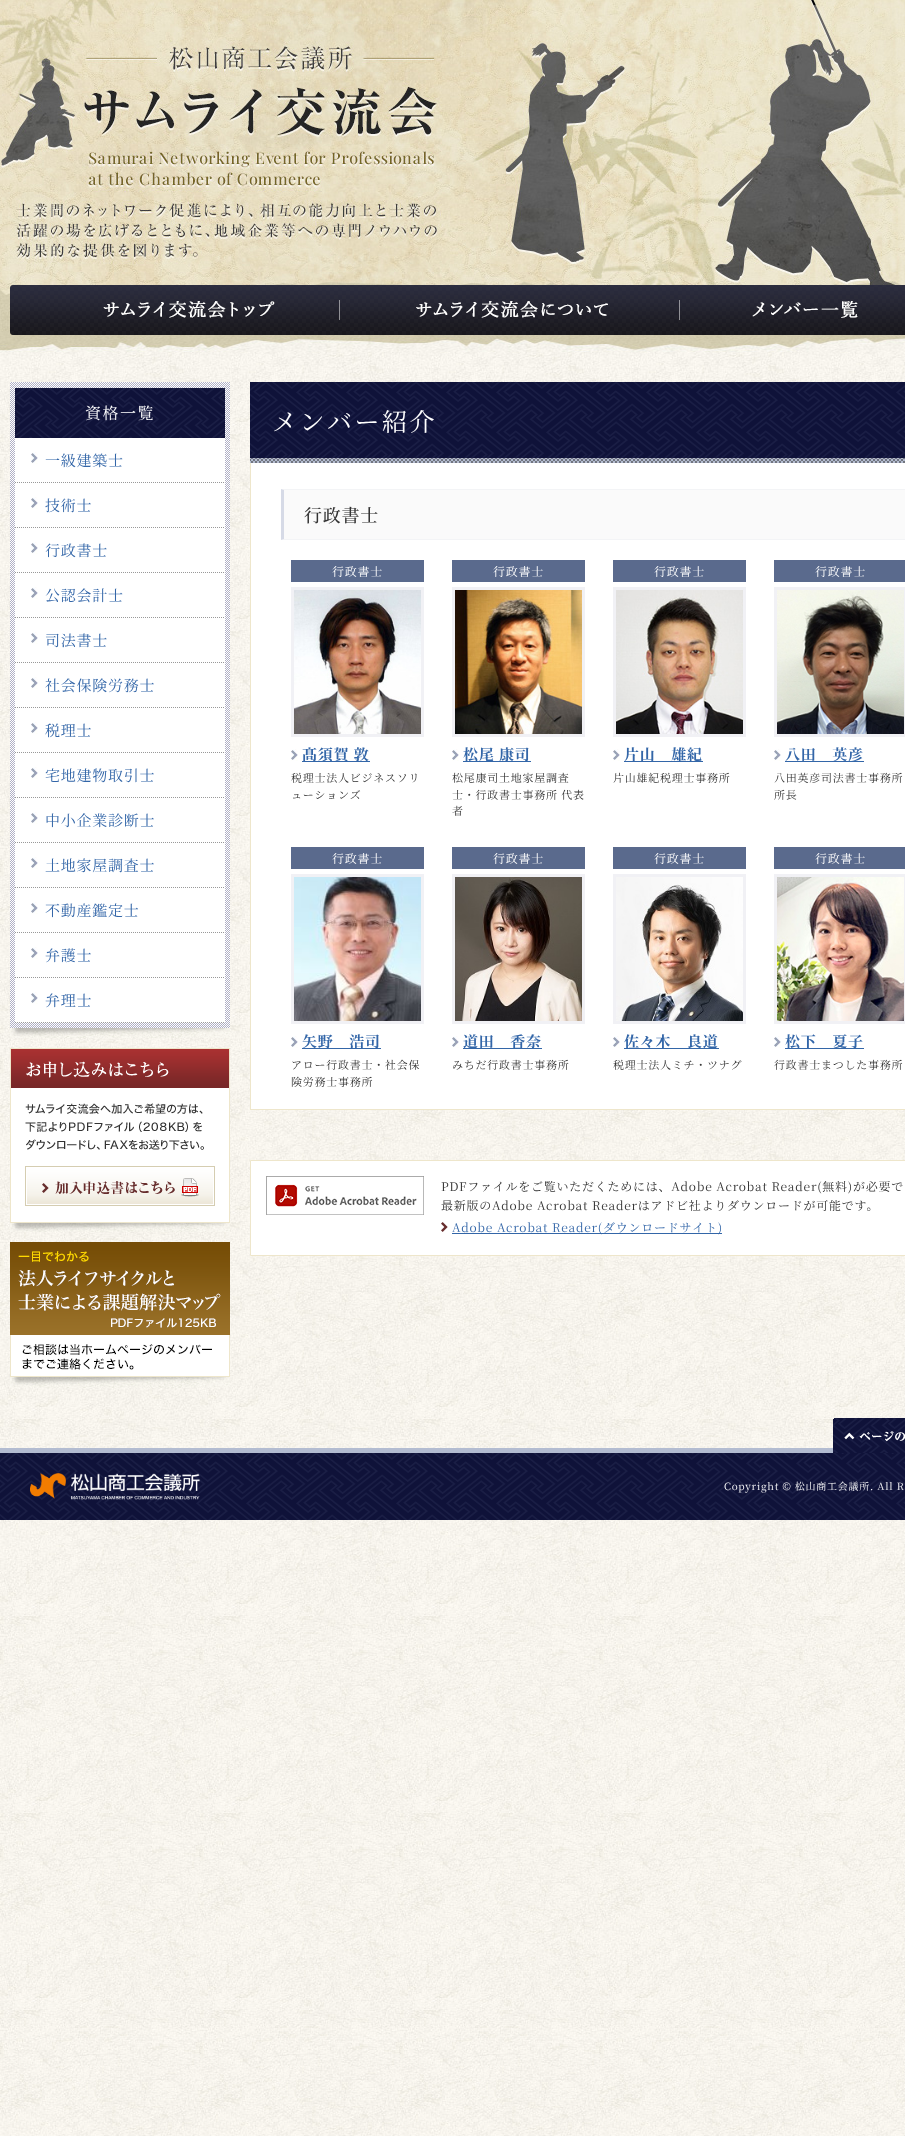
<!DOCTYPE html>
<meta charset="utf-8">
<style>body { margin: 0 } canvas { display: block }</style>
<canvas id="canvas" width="905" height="2136"></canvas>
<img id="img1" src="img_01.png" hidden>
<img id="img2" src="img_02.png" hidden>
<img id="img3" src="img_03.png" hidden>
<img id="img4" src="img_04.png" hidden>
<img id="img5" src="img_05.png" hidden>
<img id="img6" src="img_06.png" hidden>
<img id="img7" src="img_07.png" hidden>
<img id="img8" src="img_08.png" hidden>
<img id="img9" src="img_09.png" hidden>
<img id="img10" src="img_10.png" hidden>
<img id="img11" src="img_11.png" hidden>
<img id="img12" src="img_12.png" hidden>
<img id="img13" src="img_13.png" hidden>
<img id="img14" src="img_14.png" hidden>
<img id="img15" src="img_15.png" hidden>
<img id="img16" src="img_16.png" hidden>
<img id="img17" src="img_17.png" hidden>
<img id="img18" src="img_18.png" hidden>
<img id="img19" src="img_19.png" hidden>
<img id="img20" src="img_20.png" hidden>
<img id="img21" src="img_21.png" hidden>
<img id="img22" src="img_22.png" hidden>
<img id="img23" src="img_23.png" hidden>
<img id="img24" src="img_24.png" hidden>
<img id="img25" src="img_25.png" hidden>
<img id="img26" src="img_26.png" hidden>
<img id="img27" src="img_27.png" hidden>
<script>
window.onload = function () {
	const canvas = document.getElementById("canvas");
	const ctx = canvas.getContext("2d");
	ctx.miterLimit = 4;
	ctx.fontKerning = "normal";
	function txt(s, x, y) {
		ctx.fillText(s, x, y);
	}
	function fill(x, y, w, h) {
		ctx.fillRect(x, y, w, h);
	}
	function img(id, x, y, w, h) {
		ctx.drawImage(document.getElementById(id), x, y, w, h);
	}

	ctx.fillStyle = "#FFFFFF";
	fill(0, 0, 905, 2136);
	img("img1", 0, 352, 905, 1784);
	img("img2", 0, 331, 905, 21);
	img("img3", 0, 0, 905, 331);
	img("img4", 10, 285, 330, 50);
	img("img5", 340, 285, 340, 50);
	img("img6", 680, 285, 225, 50);
	img("img7", 10, 1028, 220, 10);
	img("img8", 10, 382, 220, 646);
	img("img9", 15, 388, 210, 50);
	fill(15, 438, 210, 585);
	ctx.beginPath();
	ctx.moveTo(15, 482.5);
	ctx.lineTo(225, 482.5);
	ctx.strokeStyle = "#999999";
	ctx.setLineDash([1, 1]);
	ctx.stroke();
	img("img10", 31, 452, 7, 12);
	ctx.beginPath();
	ctx.moveTo(15, 527.5);
	ctx.lineTo(225, 527.5);
	ctx.stroke();
	img("img10", 31, 497, 7, 12);
	ctx.beginPath();
	ctx.moveTo(15, 572.5);
	ctx.lineTo(225, 572.5);
	ctx.stroke();
	img("img10", 31, 542, 7, 12);
	ctx.beginPath();
	ctx.moveTo(15, 617.5);
	ctx.lineTo(225, 617.5);
	ctx.stroke();
	img("img10", 31, 587, 7, 12);
	ctx.beginPath();
	ctx.moveTo(15, 662.5);
	ctx.lineTo(225, 662.5);
	ctx.stroke();
	img("img10", 31, 632, 7, 12);
	ctx.beginPath();
	ctx.moveTo(15, 707.5);
	ctx.lineTo(225, 707.5);
	ctx.stroke();
	img("img10", 31, 677, 7, 12);
	ctx.beginPath();
	ctx.moveTo(15, 752.5);
	ctx.lineTo(225, 752.5);
	ctx.stroke();
	img("img10", 31, 722, 7, 12);
	ctx.beginPath();
	ctx.moveTo(15, 797.5);
	ctx.lineTo(225, 797.5);
	ctx.stroke();
	img("img10", 31, 767, 7, 12);
	ctx.beginPath();
	ctx.moveTo(15, 842.5);
	ctx.lineTo(225, 842.5);
	ctx.stroke();
	img("img10", 31, 812, 7, 12);
	ctx.beginPath();
	ctx.moveTo(15, 887.5);
	ctx.lineTo(225, 887.5);
	ctx.stroke();
	img("img10", 31, 857, 7, 12);
	ctx.beginPath();
	ctx.moveTo(15, 932.5);
	ctx.lineTo(225, 932.5);
	ctx.stroke();
	img("img10", 31, 902, 7, 12);
	ctx.beginPath();
	ctx.moveTo(15, 977.5);
	ctx.lineTo(225, 977.5);
	ctx.stroke();
	img("img10", 31, 947, 7, 12);
	ctx.beginPath();
	ctx.moveTo(15, 1022.5);
	ctx.lineTo(225, 1022.5);
	ctx.stroke();
	img("img10", 31, 992, 7, 12);
	img("img11", 10, 1048, 221, 184);
	img("img12", 10, 1242, 220, 146);
	img("img13", 250, 382, 655, 76);
	fill(251, 463, 654, 646);
	ctx.strokeStyle = "#EEE6CB";
	ctx.setLineDash([]);
	ctx.strokeRect(250.5, 458.5, 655, 651);
	img("img14", 250, 458, 655, 5);
	ctx.fillStyle = "#FAFAFA";
	fill(284, 490, 621, 49);
	ctx.fillStyle = "#F3F4F6";
	ctx.beginPath();
	ctx.moveTo(281, 489);
	ctx.lineTo(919, 489);
	ctx.lineTo(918, 490);
	ctx.lineTo(284, 490);
	ctx.closePath();
	ctx.fill();
	ctx.beginPath();
	ctx.moveTo(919, 540);
	ctx.lineTo(281, 540);
	ctx.lineTo(284, 539);
	ctx.lineTo(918, 539);
	ctx.closePath();
	ctx.fill();
	ctx.fillStyle = "#D6DAE6";
	ctx.beginPath();
	ctx.moveTo(281, 540);
	ctx.lineTo(281, 489);
	ctx.lineTo(284, 490);
	ctx.lineTo(284, 539);
	ctx.closePath();
	ctx.fill();
	ctx.fillStyle = "#5A6A8D";
	fill(291, 560, 133, 22);
	ctx.strokeStyle = "#F1F1F5";
	ctx.lineWidth = 3;
	ctx.strokeRect(292.5, 588.5, 130, 147);
	img("img15", 294, 590, 127, 144);
	img("img10", 291, 749, 7, 12);
	ctx.fillStyle = "#3366A8";
	fill(302, 761, 68, 1);
	ctx.fillStyle = "#5A6A8D";
	fill(452, 560, 133, 22);
	ctx.strokeRect(453.5, 588.5, 130, 147);
	img("img16", 455, 590, 127, 144);
	img("img10", 452, 749, 7, 12);
	ctx.fillStyle = "#3366A8";
	fill(463, 761, 68, 1);
	ctx.fillStyle = "#5A6A8D";
	fill(613, 560, 133, 22);
	ctx.strokeRect(614.5, 588.5, 130, 147);
	img("img17", 616, 590, 127, 144);
	img("img10", 613, 749, 7, 12);
	ctx.fillStyle = "#3366A8";
	fill(624, 761, 79, 1);
	ctx.fillStyle = "#5A6A8D";
	fill(774, 560, 131, 22);
	ctx.strokeRect(775.5, 588.5, 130, 147);
	img("img18", 777, 590, 127, 144);
	img("img10", 774, 749, 7, 12);
	ctx.fillStyle = "#3366A8";
	fill(785, 761, 79, 1);
	ctx.fillStyle = "#5A6A8D";
	fill(291, 847, 133, 22);
	ctx.strokeRect(292.5, 875.5, 130, 147);
	img("img19", 294, 877, 127, 144);
	img("img10", 291, 1036, 7, 12);
	ctx.fillStyle = "#3366A8";
	fill(302, 1048, 79, 1);
	ctx.fillStyle = "#5A6A8D";
	fill(452, 847, 133, 22);
	ctx.strokeRect(453.5, 875.5, 130, 147);
	img("img20", 455, 877, 127, 144);
	img("img10", 452, 1036, 7, 12);
	ctx.fillStyle = "#3366A8";
	fill(463, 1048, 79, 1);
	ctx.fillStyle = "#5A6A8D";
	fill(613, 847, 133, 22);
	ctx.strokeRect(614.5, 875.5, 130, 147);
	img("img21", 616, 877, 127, 144);
	img("img10", 613, 1036, 7, 12);
	ctx.fillStyle = "#3366A8";
	fill(624, 1048, 95, 1);
	ctx.fillStyle = "#5A6A8D";
	fill(774, 847, 131, 22);
	ctx.strokeRect(775.5, 875.5, 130, 147);
	img("img22", 777, 877, 127, 144);
	img("img10", 774, 1036, 7, 12);
	ctx.fillStyle = "#3366A8";
	fill(785, 1048, 79, 1);
	ctx.fillStyle = "#FFFFFF";
	ctx.beginPath();
	ctx.rect(250.5, 1160.5, 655, 95);
	ctx.fill();
	ctx.strokeStyle = "#EEE6CB";
	ctx.lineWidth = 1;
	ctx.stroke();
	img("img23", 266, 1176, 158, 39);
	img("img24", 441, 1222, 7, 10);
	ctx.fillStyle = "#3366A8";
	fill(452, 1233, 270, 1);
	img("img25", 0, 1453, 905, 67);
	ctx.fillStyle = "#B3BCD1";
	fill(0, 1448, 833, 5);
	img("img26", 833, 1418, 72, 35);
	img("img27", 30, 1473, 170, 27);
	ctx.letterSpacing = "1.5px";
	ctx.font = "16px Noto Serif JP";
	ctx.fillStyle = "#FFFFFF";
	txt("資格一覧", 85, 419);
	ctx.letterSpacing = "0.75px";
	ctx.font = "15px Noto Serif JP";
	ctx.fillStyle = "#3366A8";
	txt("一級建築士", 45, 466);
	txt("技術士", 45, 511);
	txt("行政書士", 45, 556);
	txt("公認会計士", 45, 601);
	txt("司法書士", 45, 646);
	txt("社会保険労務士", 45, 691);
	txt("税理士", 45, 736);
	txt("宅地建物取引士", 45, 781);
	txt("中小企業診断士", 45, 826);
	txt("土地家屋調査士", 45, 871);
	txt("不動産鑑定士", 45, 916);
	txt("弁護士", 45, 961);
	txt("弁理士", 45, 1006);
	ctx.letterSpacing = "2.5px";
	ctx.font = "25px Noto Serif JP";
	ctx.fillStyle = "#FFFFFF";
	txt("メンバー紹介", 272, 431);
	ctx.letterSpacing = "0.75px";
	ctx.font = "500 18px Noto Serif JP";
	ctx.fillStyle = "#333333";
	txt("行政書士", 304, 522);
	ctx.font = "12px Noto Serif JP";
	ctx.fillStyle = "#FFFFFF";
	txt("行政書士", 332, 576);
	ctx.font = "bold 15px Noto Serif JP";
	ctx.fillStyle = "#3366A8";
	txt("髙須賀 敦", 302, 760);
	ctx.font = "11px Noto Serif JP";
	ctx.fillStyle = "#333333";
	txt("税理士法人ビジネスソリ", 291, 782);
	txt("ューションズ", 291, 799);
	ctx.font = "12px Noto Serif JP";
	ctx.fillStyle = "#FFFFFF";
	txt("行政書士", 493, 576);
	ctx.font = "bold 15px Noto Serif JP";
	ctx.fillStyle = "#3366A8";
	txt("松尾 康司", 463, 760);
	ctx.font = "11px Noto Serif JP";
	ctx.fillStyle = "#333333";
	txt("松尾康司土地家屋調査", 452, 782);
	txt("士・行政書士事務所 代表", 452, 799);
	txt("者", 452, 815);
	ctx.font = "12px Noto Serif JP";
	ctx.fillStyle = "#FFFFFF";
	txt("行政書士", 654, 576);
	ctx.font = "bold 15px Noto Serif JP";
	ctx.fillStyle = "#3366A8";
	txt("片山　雄紀", 624, 760);
	ctx.font = "11px Noto Serif JP";
	ctx.fillStyle = "#333333";
	txt("片山雄紀税理士事務所", 613, 782);
	ctx.font = "12px Noto Serif JP";
	ctx.fillStyle = "#FFFFFF";
	txt("行政書士", 815, 576);
	ctx.font = "bold 15px Noto Serif JP";
	ctx.fillStyle = "#3366A8";
	txt("八田　英彦", 785, 760);
	ctx.font = "11px Noto Serif JP";
	ctx.fillStyle = "#333333";
	txt("八田英彦司法書士事務所", 774, 782);
	txt("所長", 774, 799);
	ctx.font = "12px Noto Serif JP";
	ctx.fillStyle = "#FFFFFF";
	txt("行政書士", 332, 863);
	ctx.font = "bold 15px Noto Serif JP";
	ctx.fillStyle = "#3366A8";
	txt("矢野　浩司", 302, 1047);
	ctx.font = "11px Noto Serif JP";
	ctx.fillStyle = "#333333";
	txt("アロー行政書士・社会保", 291, 1069);
	txt("険労務士事務所", 291, 1086);
	ctx.font = "12px Noto Serif JP";
	ctx.fillStyle = "#FFFFFF";
	txt("行政書士", 493, 863);
	ctx.font = "bold 15px Noto Serif JP";
	ctx.fillStyle = "#3366A8";
	txt("道田　香奈", 463, 1047);
	ctx.font = "11px Noto Serif JP";
	ctx.fillStyle = "#333333";
	txt("みちだ行政書士事務所", 452, 1069);
	ctx.font = "12px Noto Serif JP";
	ctx.fillStyle = "#FFFFFF";
	txt("行政書士", 654, 863);
	ctx.font = "bold 15px Noto Serif JP";
	ctx.fillStyle = "#3366A8";
	txt("佐々木　良道", 624, 1047);
	ctx.font = "11px Noto Serif JP";
	ctx.fillStyle = "#333333";
	txt("税理士法人ミチ・ツナグ", 613, 1069);
	ctx.font = "12px Noto Serif JP";
	ctx.fillStyle = "#FFFFFF";
	txt("行政書士", 815, 863);
	ctx.font = "bold 15px Noto Serif JP";
	ctx.fillStyle = "#3366A8";
	txt("松下　夏子", 785, 1047);
	ctx.font = "11px Noto Serif JP";
	ctx.fillStyle = "#333333";
	txt("行政書士まつした事務所", 774, 1069);
	ctx.font = "12px Noto Serif JP";
	txt("PDFファイルをご覧いただくためには、Adobe Acrobat Reader(無料)が必要で", 441, 1191);
	txt("最新版のAdobe Acrobat Readerはアドビ社よりダウンロードが可能です。", 441, 1210);
	ctx.fillStyle = "#3366A8";
	txt("Adobe Acrobat Reader(ダウンロードサイト)", 452, 1232);
	ctx.font = "10px Noto Serif JP";
	ctx.fillStyle = "#FFFFFF";
	txt("Copyright © 松山商工会議所. All R", 724, 1490);
};
</script>
